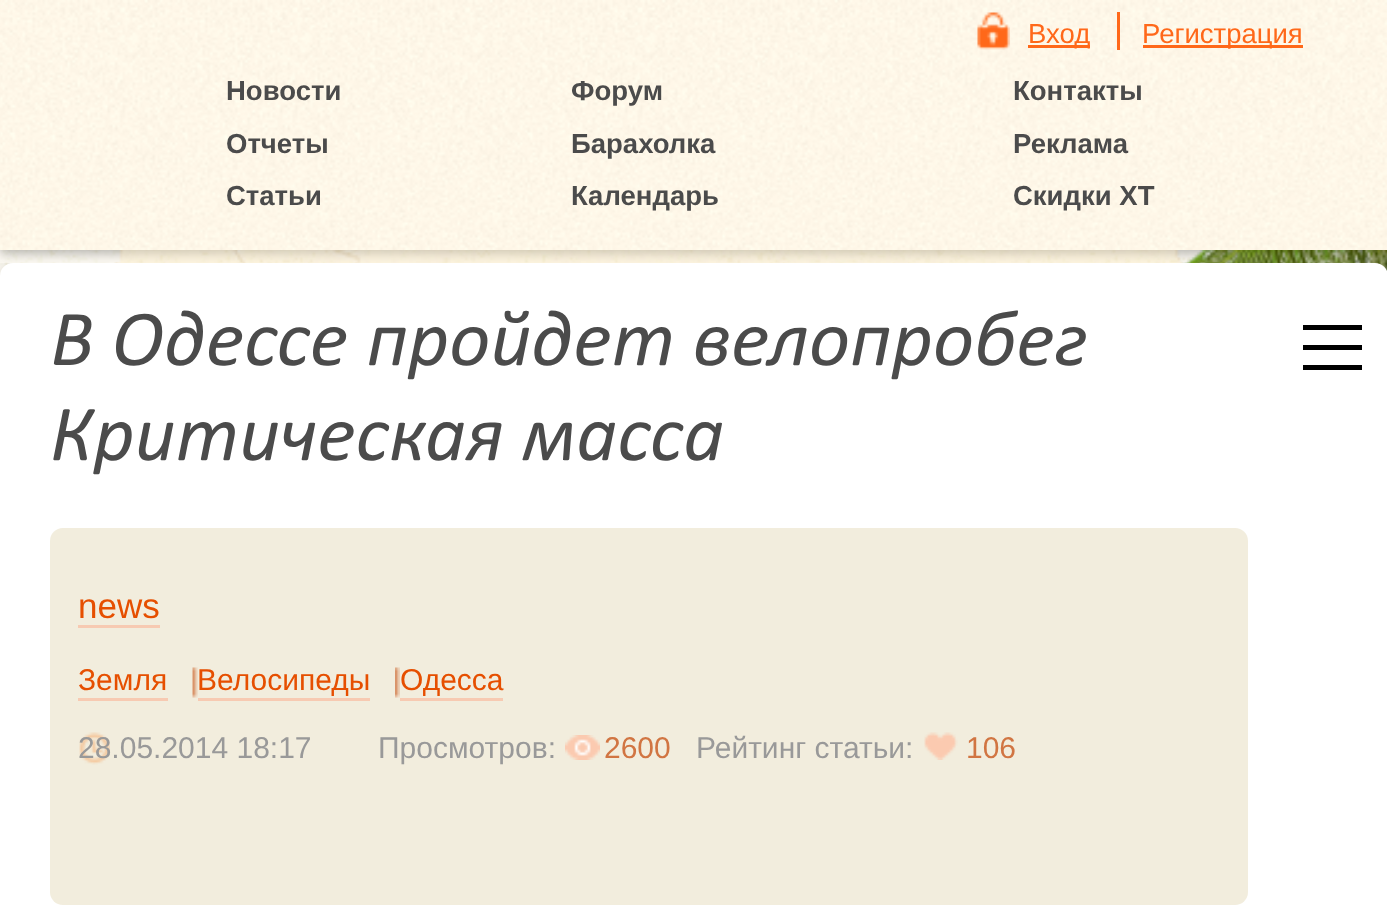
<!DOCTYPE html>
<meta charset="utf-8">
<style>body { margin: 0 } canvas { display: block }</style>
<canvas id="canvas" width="1387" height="922"></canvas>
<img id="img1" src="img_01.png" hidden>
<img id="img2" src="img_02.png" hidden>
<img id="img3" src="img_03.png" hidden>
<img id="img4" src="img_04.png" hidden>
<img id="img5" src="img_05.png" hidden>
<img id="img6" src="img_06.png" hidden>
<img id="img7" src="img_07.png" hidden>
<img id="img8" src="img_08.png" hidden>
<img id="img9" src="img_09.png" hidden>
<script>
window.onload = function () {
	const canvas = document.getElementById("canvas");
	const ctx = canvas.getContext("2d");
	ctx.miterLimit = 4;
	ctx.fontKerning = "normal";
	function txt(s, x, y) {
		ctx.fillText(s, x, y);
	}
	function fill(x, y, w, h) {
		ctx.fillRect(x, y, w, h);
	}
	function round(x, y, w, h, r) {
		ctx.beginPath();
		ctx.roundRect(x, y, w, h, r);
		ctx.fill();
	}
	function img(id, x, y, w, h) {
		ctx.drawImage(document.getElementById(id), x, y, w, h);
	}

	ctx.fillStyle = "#FFFFFF";
	fill(0, 0, 1387, 922);
	img("img1", 0, 250, 1387, 26);
	ctx.fillStyle = "rgba(0, 0, 0, 0.3)";
	ctx.filter = "blur(6px)";
	ctx.beginPath();
	ctx.rect(0, 3, 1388, 250);
	ctx.fill();
	ctx.filter = "none";
	img("img2", 0, 0, 1387, 250);
	img("img3", 977, 12, 33, 38);
	ctx.fillStyle = "#FF6819";
	fill(1028, 45, 62, 3);
	fill(1117, 12, 3, 38);
	fill(1143, 45, 160, 3);
	img("img4", 114, 250, 1273, 21);
	ctx.save();
	ctx.beginPath();
	ctx.rect(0, 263, 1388, 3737);
	ctx.clip();
	ctx.fillStyle = "rgba(0, 0, 0, 0.12)";
	ctx.filter = "blur(7.5px)";
	ctx.beginPath();
	ctx.roundRect(0, 263, 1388, 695, 13);
	ctx.fill();
	ctx.filter = "none";
	ctx.restore();
	ctx.fillStyle = "#FFFFFF";
	round(0, 263, 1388, 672, 13);
	ctx.save();
	ctx.beginPath();
	ctx.rect(1303, 325, 60, 45);
	ctx.clip();
	ctx.fillStyle = "#000000";
	ctx.beginPath();
	ctx.moveTo(1302, 325);
	ctx.lineTo(1302, 330);
	ctx.lineTo(1362, 330);
	ctx.lineTo(1362, 325);
	ctx.closePath();
	ctx.moveTo(1302, 350);
	ctx.lineTo(1302, 345);
	ctx.lineTo(1362, 345);
	ctx.lineTo(1362, 350);
	ctx.closePath();
	ctx.moveTo(1302, 365);
	ctx.lineTo(1302, 370);
	ctx.lineTo(1362, 370);
	ctx.lineTo(1362, 365);
	ctx.closePath();
	ctx.fill("evenodd");
	ctx.restore();
	ctx.fillStyle = "#F2EDDD";
	round(50, 528, 1198, 377, 13);
	ctx.fillStyle = "#F7CAB2";
	fill(78, 625, 82, 3);
	img("img5", 192, 667, 6, 31);
	fill(78, 698, 90, 3);
	img("img6", 395, 667, 5, 31);
	fill(198, 698, 172, 3);
	fill(400, 698, 103, 3);
	img("img7", 79, 732, 31, 33);
	img("img8", 565, 735, 35, 25);
	img("img9", 924, 732, 34, 28);
	ctx.font = "27.5px Liberation Sans";
	ctx.fillStyle = "#FF6819";
	txt("Вход", 1028, 43);
	txt("Регистрация", 1142, 43);
	ctx.font = "bold 27.5px Liberation Sans";
	ctx.fillStyle = "#4B4B4B";
	txt("Новости", 226, 100);
	txt("Форум", 571, 100);
	txt("Контакты", 1013, 100);
	txt("Отчеты", 226, 153);
	txt("Барахолка", 571, 153);
	txt("Реклама", 1013, 153);
	txt("Статьи", 226, 205);
	txt("Календарь", 571, 205);
	txt("Скидки ХТ", 1013, 205);
	ctx.font = "italic 80px Calibri";
	txt("В Одессе пройдет велопробег", 50, 365);
	txt("Критическая масса", 50, 460);
	ctx.font = "35px Liberation Sans";
	ctx.fillStyle = "#E64F00";
	txt("news", 78, 618);
	ctx.font = "30px Liberation Sans";
	txt("Земля", 78, 690);
	txt("Велосипеды", 197, 690);
	txt("Одесса", 400, 690);
	ctx.fillStyle = "#999999";
	txt("28.05.2014 18:17", 78, 758);
	txt("Просмотров:", 378, 758);
	ctx.fillStyle = "#D17542";
	txt("2600", 604, 758);
	ctx.fillStyle = "#999999";
	txt("Рейтинг статьи:", 696, 758);
	ctx.fillStyle = "#D17542";
	txt("106", 966, 758);
};
</script>
